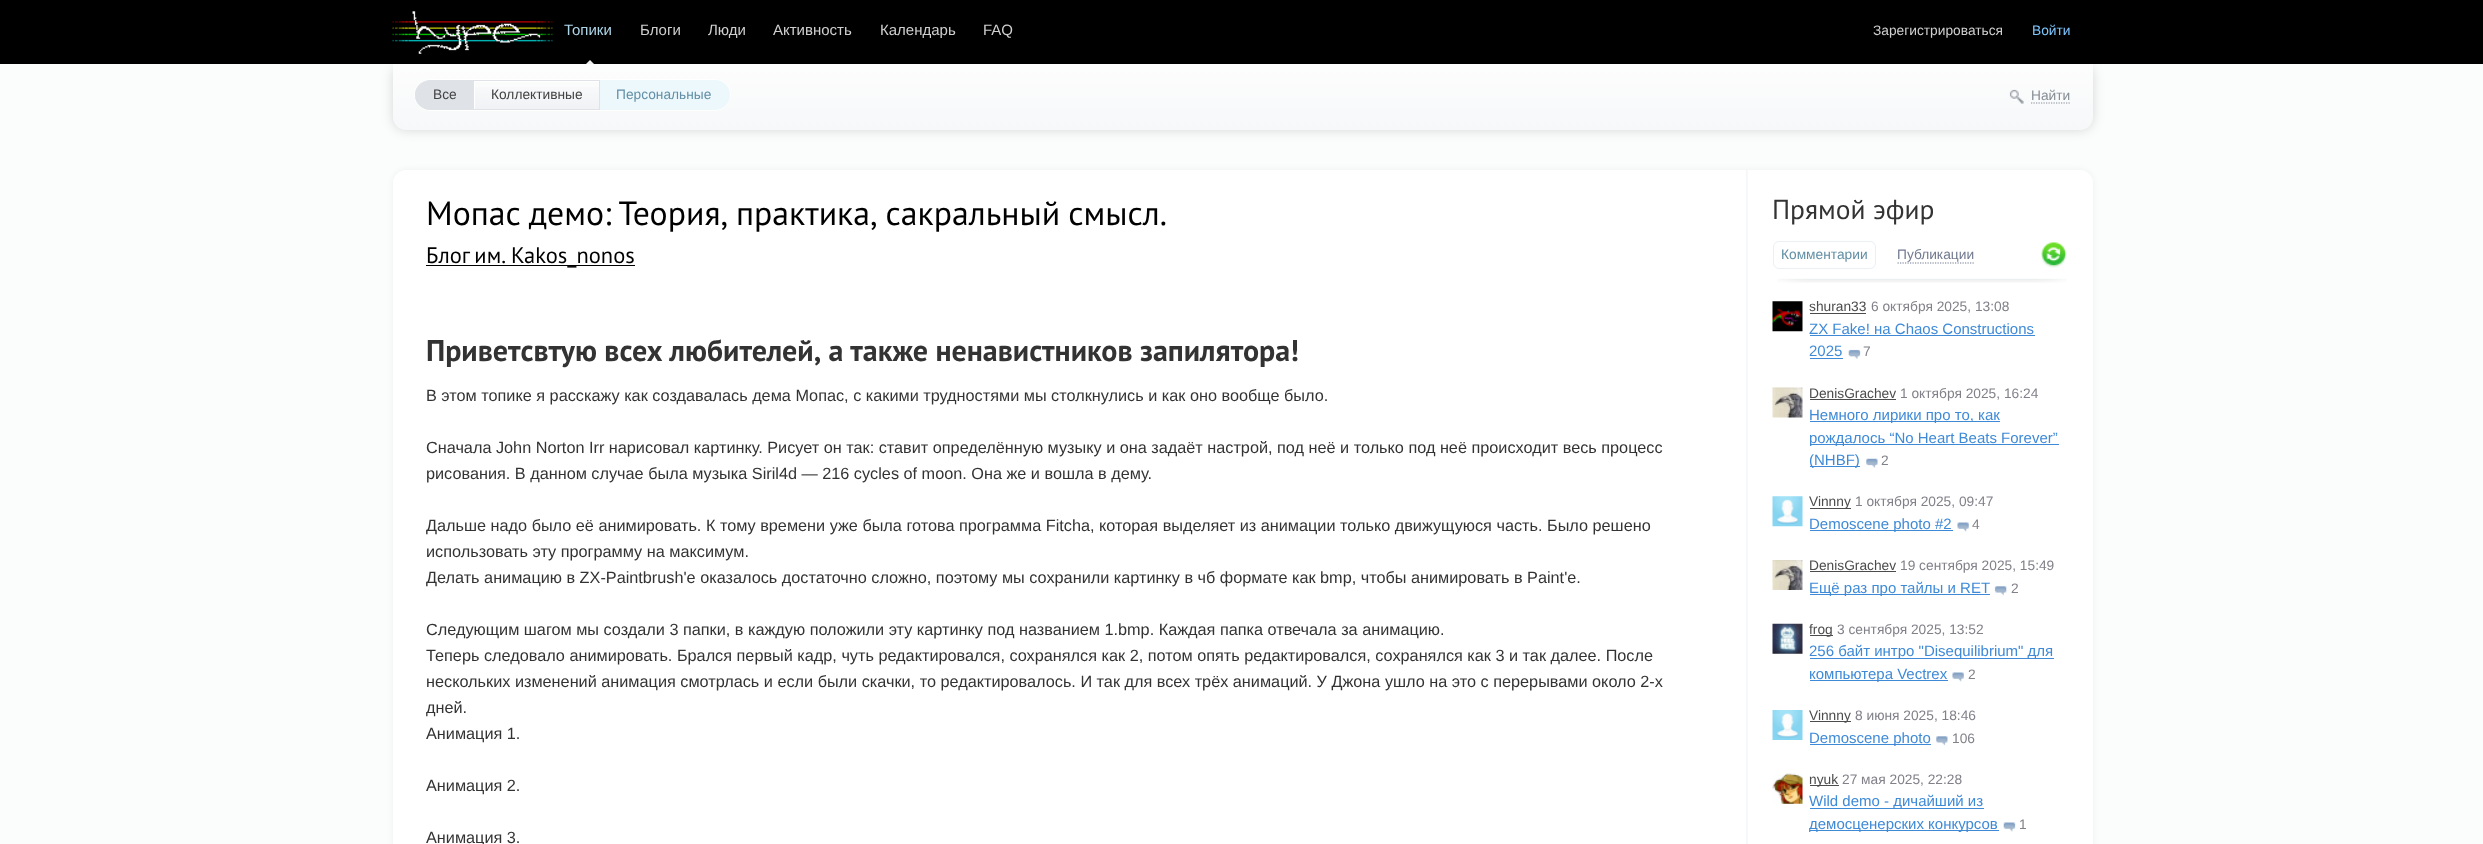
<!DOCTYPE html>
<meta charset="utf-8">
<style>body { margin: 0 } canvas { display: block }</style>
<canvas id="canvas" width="2483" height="844"></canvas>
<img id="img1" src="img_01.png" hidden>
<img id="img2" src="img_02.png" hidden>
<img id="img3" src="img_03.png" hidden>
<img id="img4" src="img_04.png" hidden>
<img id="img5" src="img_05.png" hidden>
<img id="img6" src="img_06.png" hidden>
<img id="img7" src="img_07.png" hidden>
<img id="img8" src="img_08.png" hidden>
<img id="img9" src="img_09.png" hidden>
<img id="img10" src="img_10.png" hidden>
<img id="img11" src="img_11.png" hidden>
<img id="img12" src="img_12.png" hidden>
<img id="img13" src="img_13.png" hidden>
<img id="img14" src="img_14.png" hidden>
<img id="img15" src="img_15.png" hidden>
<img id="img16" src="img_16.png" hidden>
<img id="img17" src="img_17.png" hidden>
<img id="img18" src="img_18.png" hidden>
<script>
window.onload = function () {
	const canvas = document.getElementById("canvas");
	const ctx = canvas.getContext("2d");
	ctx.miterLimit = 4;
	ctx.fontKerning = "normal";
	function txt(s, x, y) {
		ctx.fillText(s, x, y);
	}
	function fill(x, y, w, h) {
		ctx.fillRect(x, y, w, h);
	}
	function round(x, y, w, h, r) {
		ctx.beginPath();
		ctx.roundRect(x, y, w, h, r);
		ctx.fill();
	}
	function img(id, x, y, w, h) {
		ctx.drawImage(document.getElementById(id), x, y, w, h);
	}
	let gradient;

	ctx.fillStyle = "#FBFCFC";
	fill(0, 0, 2483, 844);
	ctx.fillStyle = "#000000";
	fill(0, 0, 2483, 64);
	img("img1", 392, 11, 161, 43);
	ctx.fillStyle = "#FFFFFF";
	ctx.beginPath();
	ctx.moveTo(594, 64);
	ctx.lineTo(586, 64);
	ctx.lineTo(590, 60);
	ctx.closePath();
	ctx.fill();
	ctx.fillStyle = "rgba(0, 0, 0, 0.15)";
	ctx.filter = "blur(6px)";
	ctx.beginPath();
	ctx.roundRect(393, 64, 1700, 66, 13);
	ctx.fill();
	ctx.filter = "none";
	gradient = ctx.createLinearGradient(1243, 64, 1243, 130);
	gradient.addColorStop(0, "#FDFDFD");
	gradient.addColorStop(1, "#F6F8F9");
	ctx.fillStyle = gradient;
	ctx.beginPath();
	ctx.roundRect(393, 64, 1700, 66, [0, 0, 13, 13]);
	ctx.fill();
	ctx.beginPath();
	ctx.roundRect(414.5, 79.5, 316, 31, 15.5);
	ctx.strokeStyle = "#FFFFFF";
	ctx.stroke();
	ctx.fillStyle = "#DFE3E8";
	ctx.beginPath();
	ctx.moveTo(416, 91);
	ctx.lineTo(415, 95);
	ctx.bezierCurveTo(415, 103, 422, 110, 430, 110);
	ctx.lineTo(474, 110);
	ctx.lineTo(474, 109);
	ctx.lineTo(427, 108);
	ctx.bezierCurveTo(418, 106, 414, 98, 416, 91);
	ctx.closePath();
	ctx.fill();
	ctx.beginPath();
	ctx.moveTo(430, 81);
	ctx.lineTo(474, 81);
	ctx.lineTo(474, 80);
	ctx.lineTo(430, 80);
	ctx.bezierCurveTo(422, 80, 415, 87, 415, 95);
	ctx.lineTo(416, 99);
	ctx.bezierCurveTo(414, 91, 419, 81, 430, 81);
	ctx.closePath();
	ctx.fill();
	fill(472, 80, 2, 30);
	ctx.beginPath();
	ctx.moveTo(429, 81);
	ctx.bezierCurveTo(421, 81, 415, 87, 415, 95);
	ctx.bezierCurveTo(415, 103, 421, 109, 429, 109);
	ctx.lineTo(473, 109);
	ctx.lineTo(473, 81);
	ctx.closePath();
	ctx.fill();
	fill(474, 109, 126, 1);
	fill(474, 80, 126, 1);
	fill(599, 80, 1, 30);
	gradient = ctx.createLinearGradient(536, 81, 536, 109);
	gradient.addColorStop(0, "#FBFBFC");
	gradient.addColorStop(1, "#F0F2F5");
	ctx.fillStyle = gradient;
	fill(475, 87, 124, 22);
	ctx.fillStyle = "#FFFFFF";
	fill(474, 81, 125, 1);
	fill(474, 81, 1, 28);
	ctx.fillStyle = "#EDF8FD";
	ctx.beginPath();
	ctx.roundRect(600, 80, 130, 30, [0, 15, 15, 0]);
	ctx.fill();
	img("img2", 2009, 89, 15, 15);
	ctx.beginPath();
	ctx.moveTo(2031, 103);
	ctx.lineTo(2071, 103);
	ctx.strokeStyle = "#878E96";
	ctx.lineWidth = 1.2;
	ctx.setLineDash([1.25, 1.25]);
	ctx.stroke();
	ctx.fillStyle = "rgba(0, 0, 0, 0.05)";
	ctx.filter = "blur(3px)";
	ctx.beginPath();
	ctx.roundRect(393, 170, 1700, 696, 13);
	ctx.fill();
	ctx.filter = "none";
	ctx.fillStyle = "#FFFFFF";
	round(393, 170, 1700, 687, 13);
	img("img3", 1746, 170, 2, 674);
	ctx.fillStyle = "#000000";
	fill(426, 265, 209, 1);
	img("img4", 1777, 278, 290, 5);
	ctx.beginPath();
	ctx.roundRect(1773.5, 241.5, 102, 27, 5.5);
	ctx.strokeStyle = "#EBF0F4";
	ctx.lineWidth = 1;
	ctx.setLineDash([]);
	ctx.stroke();
	ctx.beginPath();
	ctx.moveTo(1897.5, 263);
	ctx.lineTo(1974, 263);
	ctx.strokeStyle = "#727A90";
	ctx.lineWidth = 1.2;
	ctx.setLineDash([1.25, 1.25]);
	ctx.stroke();
	img("img5", 2041, 242, 26, 26);
	img("img6", 1772, 301, 31, 31);
	ctx.fillStyle = "#4C4C4C";
	fill(1810, 313, 56, 1);
	ctx.fillStyle = "#3F8AD7";
	fill(1810, 335, 225, 1);
	fill(1810, 358, 33, 1);
	img("img7", 1848, 349, 13, 10);
	img("img8", 1772, 387, 31, 31);
	ctx.fillStyle = "#4C4C4C";
	fill(1810, 399, 86, 1);
	ctx.fillStyle = "#3F8AD7";
	fill(1810, 421, 190, 1);
	fill(1810, 444, 249, 1);
	fill(1810, 466, 50, 1);
	img("img9", 1866, 458, 12, 10);
	img("img10", 1772, 496, 31, 31);
	ctx.fillStyle = "#4C4C4C";
	fill(1810, 508, 41, 1);
	ctx.fillStyle = "#3F8AD7";
	fill(1810, 530, 143, 1);
	img("img11", 1957, 522, 12, 10);
	img("img12", 1772, 560, 31, 30);
	ctx.fillStyle = "#4C4C4C";
	fill(1810, 571, 86, 1);
	ctx.fillStyle = "#3F8AD7";
	fill(1810, 594, 180, 1);
	img("img13", 1994, 586, 13, 10);
	img("img14", 1772, 623, 31, 31);
	ctx.fillStyle = "#4C4C4C";
	fill(1810, 635, 23, 1);
	ctx.fillStyle = "#3F8AD7";
	fill(1810, 658, 244, 1);
	fill(1810, 680, 138, 1);
	img("img11", 1952, 672, 12, 10);
	img("img15", 1772, 710, 31, 30);
	ctx.fillStyle = "#4C4C4C";
	fill(1810, 721, 41, 1);
	ctx.fillStyle = "#3F8AD7";
	fill(1810, 744, 121, 1);
	img("img16", 1936, 736, 12, 10);
	img("img17", 1772, 773, 31, 31);
	ctx.fillStyle = "#4C4C4C";
	fill(1810, 785, 29, 1);
	ctx.fillStyle = "#3F8AD7";
	fill(1810, 808, 174, 1);
	fill(1810, 830, 189, 1);
	img("img18", 2003, 822, 13, 10);
	ctx.font = "15px Liberation Sans";
	ctx.fillStyle = "#AED6E9";
	txt("Топики", 564, 35);
	ctx.fillStyle = "#CFCFCF";
	txt("Блоги", 640, 35);
	txt("Люди", 708, 35);
	txt("Активность", 773, 35);
	txt("Календарь", 880, 35);
	txt("FAQ", 983, 35);
	ctx.font = "13.75px Liberation Sans";
	txt("Зарегистрироваться", 1873, 35);
	ctx.fillStyle = "#7DC6FF";
	txt("Войти", 2032, 35);
	ctx.fillStyle = "#434343";
	txt("Все", 433, 99);
	txt("Коллективные", 491, 99);
	ctx.fillStyle = "#628FA5";
	txt("Персональные", 616, 99);
	ctx.fillStyle = "#878E96";
	txt("Найти", 2031, 100);
	ctx.wordSpacing = "-1px";
	ctx.font = "33.75px PT Sans";
	ctx.fillStyle = "#000000";
	txt("Мопас демо: Теория, практика, сакральный смысл.", 426, 225);
	ctx.font = "22.5px PT Sans";
	txt("Блог им. Kakos_nonos", 426, 263);
	ctx.wordSpacing = "-0.25px";
	ctx.font = "bold 30px PT Sans";
	ctx.fillStyle = "#333333";
	txt("Приветсвтую всех любителей, а также ненавистников запилятора!", 426, 361);
	ctx.wordSpacing = "0px";
	ctx.font = "16.25px Liberation Sans";
	txt("В этом топике я расскажу как создавалась дема Мопас, с какими трудностями мы столкнулись и как оно вообще было.", 426, 401);
	txt("Сначала John Norton Irr нарисовал картинку. Рисует он так: ставит определённую музыку и она задаёт настрой, под неё и только под неё происходит весь процесс", 426, 453);
	txt("рисования. В данном случае была музыка Siril4d — 216 cycles of moon. Она же и вошла в дему.", 426, 479);
	ctx.save();
	ctx.beginPath();
	ctx.rect(426, 301, 1278, 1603);
	ctx.clip();
	txt("Дальше надо было её анимировать. К тому времени уже была готова программа Fitcha, которая выделяет из анимации только движущуюся часть. Было решено", 426, 531);
	ctx.restore();
	txt("использовать эту программу на максимум.", 426, 557);
	ctx.save();
	ctx.beginPath();
	ctx.rect(426, 301, 1278, 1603);
	ctx.clip();
	txt("Делать анимацию в ZX-Paintbrush'е оказалось достаточно сложно, поэтому мы сохранили картинку в чб формате как bmp, чтобы анимировать в Paint'е.", 426, 583);
	ctx.restore();
	txt("Следующим шагом мы создали 3 папки, в каждую положили эту картинку под названием 1.bmp. Каждая папка отвечала за анимацию.", 426, 635);
	txt("Теперь следовало анимировать. Брался первый кадр, чуть редактировался, сохранялся как 2, потом опять редактировался, сохранялся как 3 и так далее. После", 426, 661);
	txt("нескольких изменений анимация смотрлась и если были скачки, то редактировалось. И так для всех трёх анимаций. У Джона ушло на это с перерывами около 2-х", 426, 687);
	ctx.save();
	ctx.beginPath();
	ctx.rect(426, 301, 1278, 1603);
	ctx.clip();
	txt("дней.", 426, 713);
	ctx.restore();
	txt("Анимация 1.", 426, 739);
	txt("Анимация 2.", 426, 791);
	txt("Анимация 3.", 426, 843);
	ctx.font = "27.5px PT Sans";
	txt("Прямой эфир", 1772, 219);
	ctx.font = "13.75px Liberation Sans";
	ctx.fillStyle = "#628FA5";
	txt("Комментарии", 1781, 259);
	ctx.fillStyle = "#727A90";
	txt("Публикации", 1897, 259);
	ctx.fillStyle = "#4C4C4C";
	txt("shuran33", 1809, 311);
	ctx.fillStyle = "#818189";
	txt("6 октября 2025, 13:08", 1871, 311);
	ctx.font = "15px Liberation Sans";
	ctx.fillStyle = "#3F8AD7";
	txt("ZX Fake! на Chaos Constructions", 1809, 334);
	txt("2025", 1809, 356);
	ctx.font = "13.75px Liberation Sans";
	ctx.fillStyle = "#818189";
	txt("7", 1863, 356);
	ctx.fillStyle = "#4C4C4C";
	txt("DenisGrachev", 1809, 398);
	ctx.fillStyle = "#818189";
	txt("1 октября 2025, 16:24", 1900, 398);
	ctx.font = "15px Liberation Sans";
	ctx.fillStyle = "#3F8AD7";
	txt("Немного лирики про то, как", 1809, 420);
	txt("рождалось “No Heart Beats Forever”", 1809, 443);
	txt("(NHBF)", 1809, 465);
	ctx.font = "13.75px Liberation Sans";
	ctx.fillStyle = "#818189";
	txt("2", 1881, 465);
	ctx.fillStyle = "#4C4C4C";
	txt("Vinnny", 1809, 506);
	ctx.fillStyle = "#818189";
	txt("1 октября 2025, 09:47", 1855, 506);
	ctx.font = "15px Liberation Sans";
	ctx.fillStyle = "#3F8AD7";
	txt("Demoscene photo #2", 1809, 529);
	ctx.font = "13.75px Liberation Sans";
	ctx.fillStyle = "#818189";
	txt("4", 1972, 529);
	ctx.fillStyle = "#4C4C4C";
	txt("DenisGrachev", 1809, 570);
	ctx.fillStyle = "#818189";
	txt("19 сентября 2025, 15:49", 1900, 570);
	ctx.font = "15px Liberation Sans";
	ctx.fillStyle = "#3F8AD7";
	txt("Ещё раз про тайлы и RET", 1809, 593);
	ctx.font = "13.75px Liberation Sans";
	ctx.fillStyle = "#818189";
	txt("2", 2011, 593);
	ctx.fillStyle = "#4C4C4C";
	txt("frog", 1809, 634);
	ctx.fillStyle = "#818189";
	txt("3 сентября 2025, 13:52", 1837, 634);
	ctx.font = "15px Liberation Sans";
	ctx.fillStyle = "#3F8AD7";
	txt("256 байт интро \"Disequilibrium\" для", 1809, 656);
	txt("компьютера Vectrex", 1809, 679);
	ctx.font = "13.75px Liberation Sans";
	ctx.fillStyle = "#818189";
	txt("2", 1968, 679);
	ctx.fillStyle = "#4C4C4C";
	txt("Vinnny", 1809, 720);
	ctx.fillStyle = "#818189";
	txt("8 июня 2025, 18:46", 1855, 720);
	ctx.font = "15px Liberation Sans";
	ctx.fillStyle = "#3F8AD7";
	txt("Demoscene photo", 1809, 743);
	ctx.font = "13.75px Liberation Sans";
	ctx.fillStyle = "#818189";
	txt("106", 1952, 743);
	ctx.fillStyle = "#4C4C4C";
	txt("nyuk", 1809, 784);
	ctx.fillStyle = "#818189";
	txt("27 мая 2025, 22:28", 1842, 784);
	ctx.font = "15px Liberation Sans";
	ctx.fillStyle = "#3F8AD7";
	txt("Wild demo - дичайший из", 1809, 806);
	txt("демосценерских конкурсов", 1809, 829);
	ctx.font = "13.75px Liberation Sans";
	ctx.fillStyle = "#818189";
	txt("1", 2019, 829);
};
</script>
